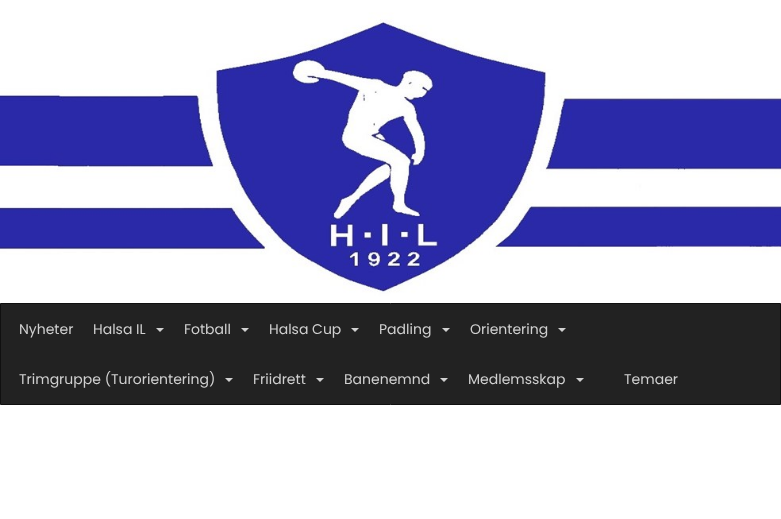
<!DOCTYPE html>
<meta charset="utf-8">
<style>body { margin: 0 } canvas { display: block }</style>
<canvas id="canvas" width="781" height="519"></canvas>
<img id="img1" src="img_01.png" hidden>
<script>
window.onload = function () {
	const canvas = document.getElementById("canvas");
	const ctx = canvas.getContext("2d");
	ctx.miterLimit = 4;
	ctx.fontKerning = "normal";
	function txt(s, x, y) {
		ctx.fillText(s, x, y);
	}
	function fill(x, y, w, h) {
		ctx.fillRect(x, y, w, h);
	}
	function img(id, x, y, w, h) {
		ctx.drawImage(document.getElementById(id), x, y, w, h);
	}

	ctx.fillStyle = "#FFFFFF";
	fill(0, 0, 781, 519);
	img("img1", 0, 0, 781, 303);
	ctx.fillStyle = "#222222";
	ctx.beginPath();
	ctx.rect(0.5, 303.5, 780, 101);
	ctx.fill();
	ctx.strokeStyle = "#101010";
	ctx.stroke();
	ctx.fillStyle = "#D0D0D0";
	ctx.beginPath();
	ctx.moveTo(156, 328);
	ctx.lineTo(164, 328);
	ctx.lineTo(160, 332);
	ctx.closePath();
	ctx.fill();
	ctx.beginPath();
	ctx.moveTo(241, 328);
	ctx.lineTo(249, 328);
	ctx.lineTo(245, 332);
	ctx.closePath();
	ctx.fill();
	ctx.beginPath();
	ctx.moveTo(351, 328);
	ctx.lineTo(359, 328);
	ctx.lineTo(355, 332);
	ctx.closePath();
	ctx.fill();
	ctx.beginPath();
	ctx.moveTo(442, 328);
	ctx.lineTo(450, 328);
	ctx.lineTo(446, 332);
	ctx.closePath();
	ctx.fill();
	ctx.beginPath();
	ctx.moveTo(558, 328);
	ctx.lineTo(566, 328);
	ctx.lineTo(562, 332);
	ctx.closePath();
	ctx.fill();
	ctx.beginPath();
	ctx.moveTo(225, 378);
	ctx.lineTo(233, 378);
	ctx.lineTo(229, 382);
	ctx.closePath();
	ctx.fill();
	ctx.beginPath();
	ctx.moveTo(316, 378);
	ctx.lineTo(324, 378);
	ctx.lineTo(320, 382);
	ctx.closePath();
	ctx.fill();
	ctx.beginPath();
	ctx.moveTo(440, 378);
	ctx.lineTo(448, 378);
	ctx.lineTo(444, 382);
	ctx.closePath();
	ctx.fill();
	ctx.beginPath();
	ctx.moveTo(576, 378);
	ctx.lineTo(584, 378);
	ctx.lineTo(580, 382);
	ctx.closePath();
	ctx.fill();
	ctx.font = "14px Poppins";
	txt("Nyheter", 19, 334);
	txt("Halsa IL", 93, 334);
	txt("Fotball", 184, 334);
	txt("Halsa Cup", 269, 334);
	txt("Padling", 379, 334);
	txt("Orientering", 470, 334);
	txt("Trimgruppe (Turorientering)", 19, 384);
	txt("Friidrett", 253, 384);
	txt("Banenemnd", 344, 384);
	txt("Medlemsskap", 468, 384);
	txt("Temaer", 624, 384);
};
</script>
